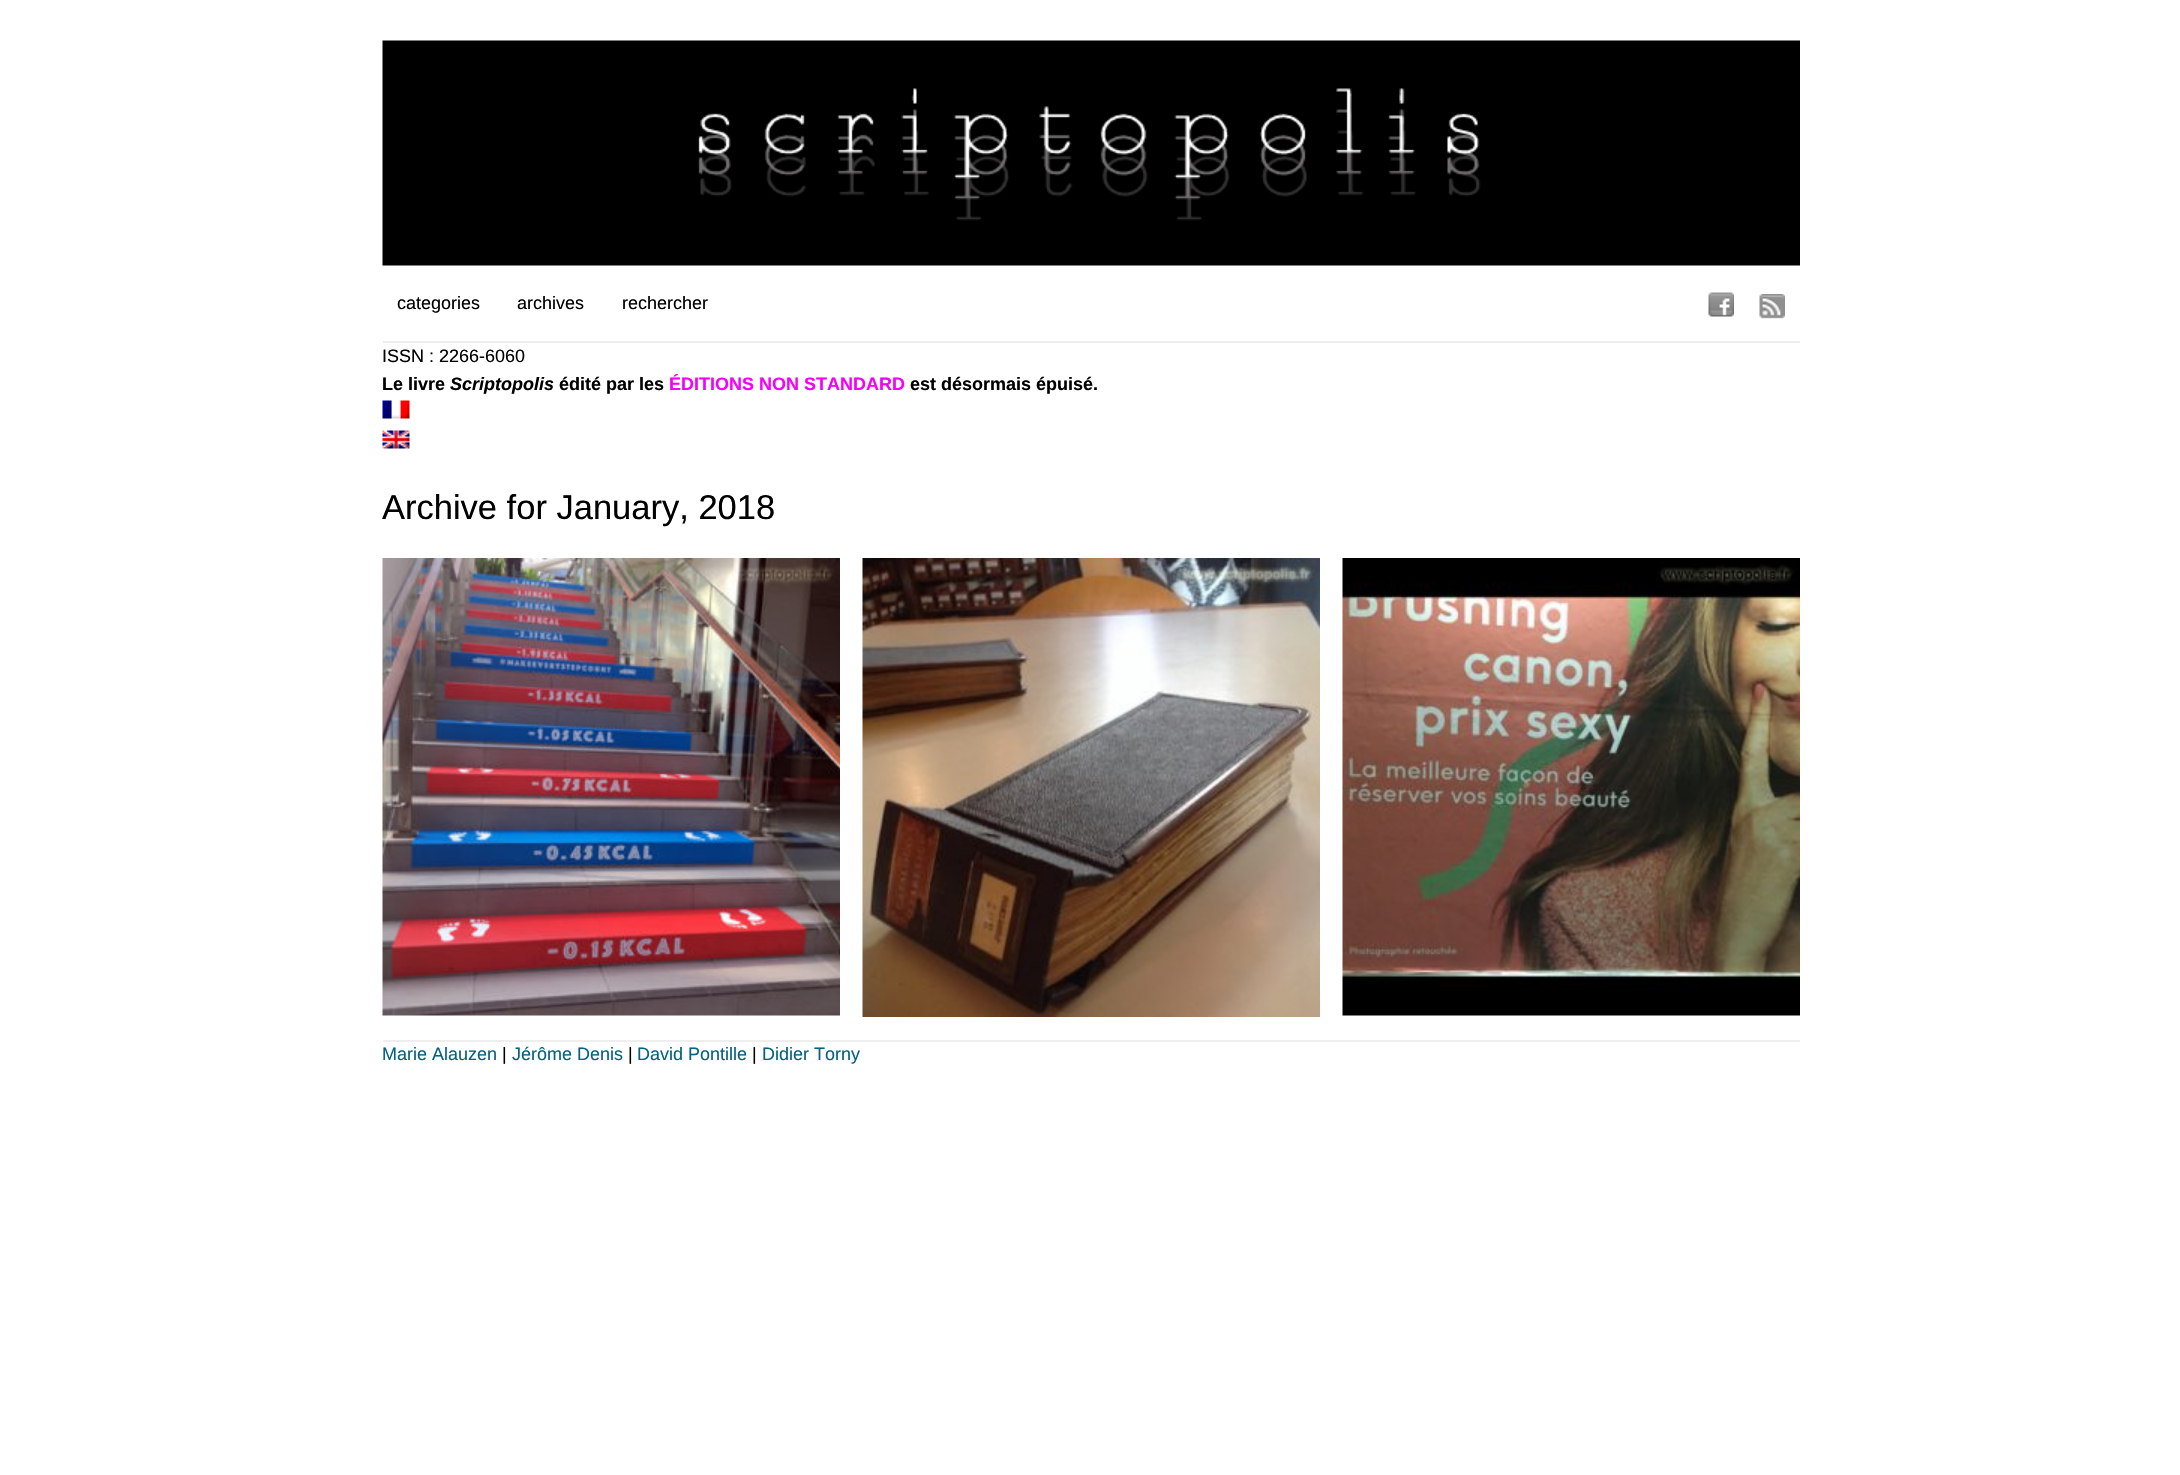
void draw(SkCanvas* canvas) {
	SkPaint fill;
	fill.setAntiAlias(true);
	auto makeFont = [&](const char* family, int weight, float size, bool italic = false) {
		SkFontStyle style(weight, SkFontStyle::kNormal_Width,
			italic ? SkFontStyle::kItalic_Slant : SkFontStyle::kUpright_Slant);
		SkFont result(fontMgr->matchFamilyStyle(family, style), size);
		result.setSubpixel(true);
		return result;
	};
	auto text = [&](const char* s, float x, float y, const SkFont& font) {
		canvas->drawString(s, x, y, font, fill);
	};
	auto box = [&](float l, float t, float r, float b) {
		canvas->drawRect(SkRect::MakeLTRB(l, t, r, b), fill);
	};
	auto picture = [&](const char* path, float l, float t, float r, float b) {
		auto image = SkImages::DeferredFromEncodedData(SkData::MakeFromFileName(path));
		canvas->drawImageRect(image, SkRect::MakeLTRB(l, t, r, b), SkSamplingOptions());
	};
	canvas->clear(0xFFFFFFFF);
	picture("image0.png", 382, 40, 1800, 266);
	fill.setColor(0xFFEEEEEE);
	box(383, 341, 1800, 343);
	picture("image1.png", 1708, 292, 1734, 317);
	picture("image2.png", 1759, 294, 1785, 319);
	picture("image3.png", 382, 400, 410, 419);
	picture("image4.png", 382, 430, 410, 449);
	picture("image5.png", 382, 558, 840, 1016);
	picture("image6.png", 862, 558, 1320, 1017);
	picture("image7.png", 1342, 558, 1800, 1016);
	box(383, 1040, 1800, 1042);
	auto font1 = makeFont("Liberation Sans", 400, 18);
	fill.setColor(0xFF000000);
	text("categories", 397, 309, font1);
	text("archives", 517, 309, font1);
	text("rechercher", 622, 309, font1);
	text("ISSN : 2266-6060", 382, 362, font1);
	auto font2 = makeFont("Liberation Sans", 700, 18);
	text("Le livre", 382, 390, font2);
	auto font3 = makeFont("Liberation Sans", 700, 18, true);
	text("Scriptopolis", 450, 390, font3);
	text("édité par les", 559, 390, font2);
	fill.setColor(0xFFF602FA);
	text("ÉDITIONS NON STANDARD", 669, 390, font2);
	fill.setColor(0xFF000000);
	text("est désormais épuisé.", 910, 390, font2);
	auto font4 = makeFont("Liberation Sans", 400, 34.5f);
	text("Archive for January, 2018", 382, 519, font4);
	fill.setColor(0xFF046380);
	text("Marie Alauzen", 382, 1060, font1);
	fill.setColor(0xFF000000);
	text("|", 502, 1060, font1);
	fill.setColor(0xFF046380);
	text("Jérôme Denis", 512, 1060, font1);
	fill.setColor(0xFF000000);
	text("|", 628, 1060, font1);
	fill.setColor(0xFF046380);
	text("David Pontille", 637, 1060, font1);
	fill.setColor(0xFF000000);
	text("|", 752, 1060, font1);
	fill.setColor(0xFF046380);
	text("Didier Torny", 762, 1060, font1);
}
